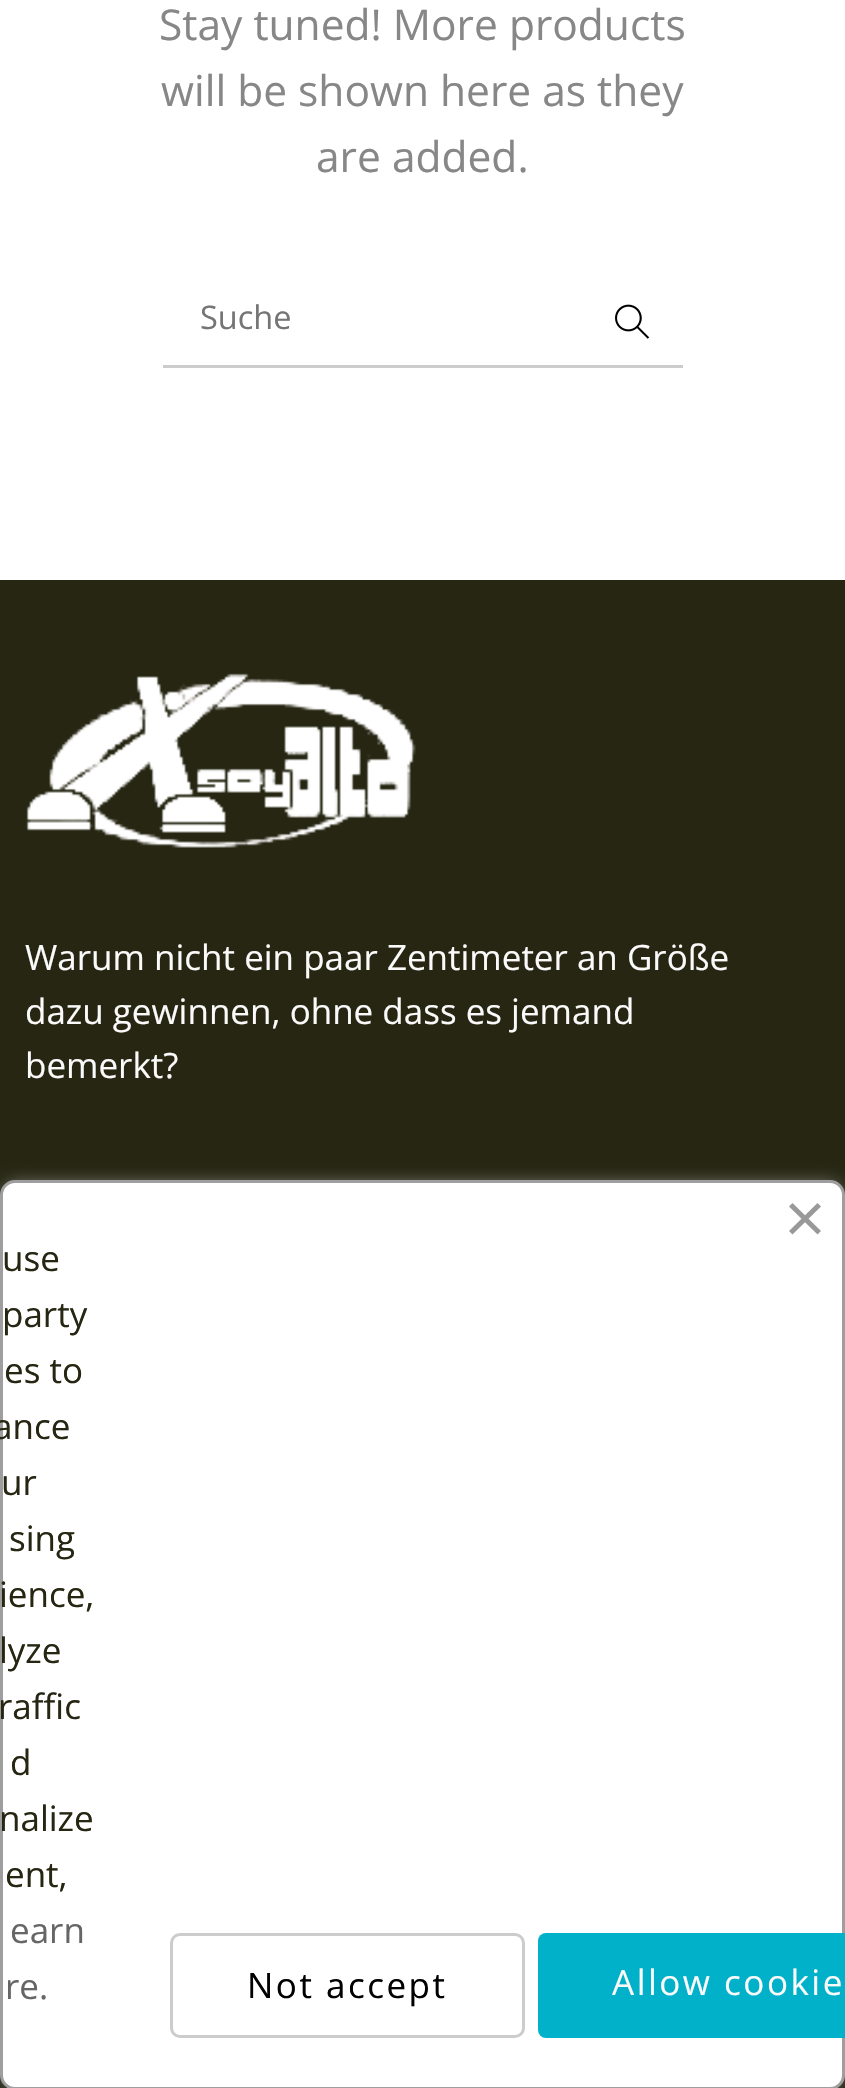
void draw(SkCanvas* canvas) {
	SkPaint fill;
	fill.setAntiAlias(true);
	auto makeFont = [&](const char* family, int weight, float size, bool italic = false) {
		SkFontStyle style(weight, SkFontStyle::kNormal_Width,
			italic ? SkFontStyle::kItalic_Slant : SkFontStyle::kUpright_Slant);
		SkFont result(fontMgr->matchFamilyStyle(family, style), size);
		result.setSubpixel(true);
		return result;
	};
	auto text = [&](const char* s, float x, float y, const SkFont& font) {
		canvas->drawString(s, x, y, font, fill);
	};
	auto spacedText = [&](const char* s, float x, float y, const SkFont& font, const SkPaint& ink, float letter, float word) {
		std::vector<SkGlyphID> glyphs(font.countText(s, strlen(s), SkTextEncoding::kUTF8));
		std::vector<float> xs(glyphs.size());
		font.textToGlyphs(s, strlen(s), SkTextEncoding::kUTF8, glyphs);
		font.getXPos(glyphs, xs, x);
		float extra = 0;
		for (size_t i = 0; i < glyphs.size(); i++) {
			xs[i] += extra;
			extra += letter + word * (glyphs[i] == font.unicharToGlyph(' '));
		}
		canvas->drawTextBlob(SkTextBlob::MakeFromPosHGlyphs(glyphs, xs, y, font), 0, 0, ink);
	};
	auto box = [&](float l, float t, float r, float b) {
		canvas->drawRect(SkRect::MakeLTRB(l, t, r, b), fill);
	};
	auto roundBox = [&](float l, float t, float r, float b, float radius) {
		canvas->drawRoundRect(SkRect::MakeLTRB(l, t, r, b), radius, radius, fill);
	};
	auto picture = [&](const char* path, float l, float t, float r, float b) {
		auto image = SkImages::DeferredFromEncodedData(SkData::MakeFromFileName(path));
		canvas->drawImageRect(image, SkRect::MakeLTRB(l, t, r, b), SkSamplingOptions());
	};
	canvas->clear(0xFFFFFFFF);
	fill.setColor(0xFFCCCCCC);
	box(163, 365, 683, 368);
	picture("image0.png", 615, 304, 650, 339);
	fill.setColor(0xFF262613);
	box(0, 580, 845, 2088);
	picture("image1.png", 26, 673, 416, 848);
	fill.setColor(0xFF9E9E9E);
	fill.setMaskFilter(SkMaskFilter::MakeBlur(kNormal_SkBlurStyle, 9));
	canvas->drawRoundRect(SkRect::MakeLTRB(5, 1185, 840, 2085), 10, 10, fill);
	fill.setMaskFilter(nullptr);
	fill.setColor(0xFFFFFFFF);
	canvas->drawRoundRect(SkRect::MakeLTRB(1.5f, 1181.5f, 843.5f, 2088.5f), 13.5f, 13.5f, fill);
	fill.setStyle(SkPaint::kStroke_Style);
	fill.setStrokeWidth(3);
	fill.setColor(0xFF9E9E9E);
	canvas->drawRoundRect(SkRect::MakeLTRB(1.5f, 1181.5f, 843.5f, 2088.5f), 13.5f, 13.5f, fill);
	fill.setStyle(SkPaint::kFill_Style);
	fill.setColor(0xFF999999);
	canvas->drawPath(SkPathBuilder().moveTo(789, 1231).lineTo(817.5f, 1203).lineTo(821, 1206.5f).lineTo(792.5f, 1234.5f).close().detach(), fill);
	canvas->drawPath(SkPathBuilder().moveTo(792.5f, 1203).lineTo(821, 1231).lineTo(817.5f, 1234.5f).lineTo(789, 1206.5f).close().detach(), fill);
	fill.setStyle(SkPaint::kStroke_Style);
	fill.setColor(0xFFCCCCCC);
	canvas->drawRoundRect(SkRect::MakeLTRB(171.5f, 1934.5f, 523.5f, 2036.5f), 8.5f, 8.5f, fill);
	fill.setStyle(SkPaint::kFill_Style);
	fill.setColor(0xFF00B1C9);
	roundBox(538, 1933, 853, 2038, 8);
	auto font1 = makeFont("Open Sans", 400, 42.5f);
	fill.setColor(0xFF878787);
	text("Stay tuned! More products", 159, 40, font1);
	text("will be shown here as they", 161, 106, font1);
	text("are added.", 316, 172, font1);
	auto font2 = makeFont("Open Sans", 400, 32.5f);
	fill.setColor(0xFF757575);
	text("Suche", 200, 329, font2);
	auto font3 = makeFont("Open Sans", 400, 35);
	fill.setColor(0xFFFAFAFA);
	text("Warum nicht ein paar Zentimeter an Größe", 25, 970, font3);
	text("dazu gewinnen, ohne dass es jemand", 25, 1024, font3);
	text("bemerkt?", 25, 1078, font3);
	fill.setColor(0xFF262613);
	text("use", 2, 1271, font3);
	text("party", 2, 1327, font3);
	text("es to", 4, 1383, font3);
	text("ance", -7, 1439, font3);
	text("ur", 1, 1495, font3);
	text("sing", 9, 1551, font3);
	text("ience,", -1, 1607, font3);
	text("lyze", -1, 1663, font3);
	text("raffic", -2, 1719, font3);
	text("d", 10, 1775, font3);
	text("nalize", -1, 1831, font3);
	text("ent,", 5, 1887, font3);
	fill.setColor(0xFF666666);
	text("earn", 10, 1943, font3);
	text("re.", 5, 1999, font3);
	fill.setColor(0xFF000000);
	spacedText("Not accept", 247, 1998, font3, fill, 2.5f, 0);
	fill.setColor(0xFFFAFAFA);
	spacedText("Allow cookie", 612, 1995, font3, fill, 2.5f, 0);
}
